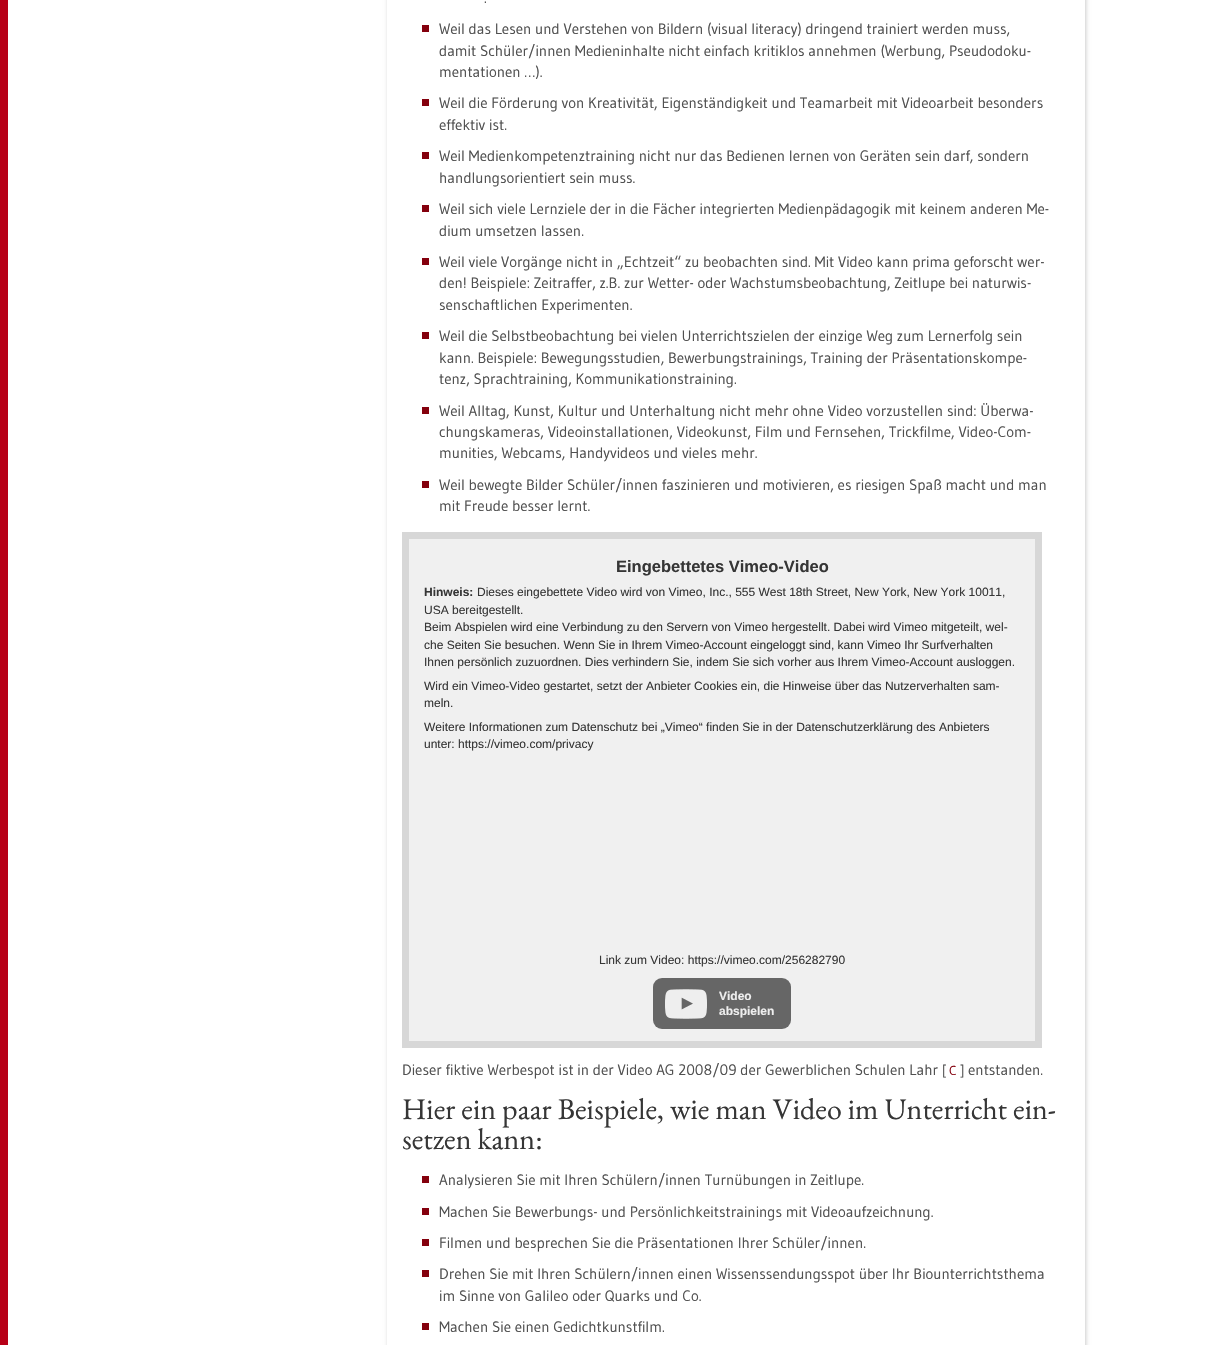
void draw(SkCanvas* canvas) {
	SkPaint fill;
	fill.setAntiAlias(true);
	auto makeFont = [&](const char* family, int weight, float size, bool italic = false) {
		SkFontStyle style(weight, SkFontStyle::kNormal_Width,
			italic ? SkFontStyle::kItalic_Slant : SkFontStyle::kUpright_Slant);
		SkFont result(fontMgr->matchFamilyStyle(family, style), size);
		result.setSubpixel(true);
		return result;
	};
	auto text = [&](const char* s, float x, float y, const SkFont& font) {
		canvas->drawString(s, x, y, font, fill);
	};
	auto box = [&](float l, float t, float r, float b) {
		canvas->drawRect(SkRect::MakeLTRB(l, t, r, b), fill);
	};
	auto roundBox = [&](float l, float t, float r, float b, float radius) {
		canvas->drawRoundRect(SkRect::MakeLTRB(l, t, r, b), radius, radius, fill);
	};
	auto picture = [&](const char* path, float l, float t, float r, float b) {
		auto image = SkImages::DeferredFromEncodedData(SkData::MakeFromFileName(path));
		canvas->drawImageRect(image, SkRect::MakeLTRB(l, t, r, b), SkSamplingOptions());
	};
	canvas->clear(0xFFFFFFFF);
	fill.setColor(0xFFB70017);
	box(0, 0, 8, 1345);
	canvas->save();
	canvas->clipPath(SkPathBuilder(SkPathFillType::kEvenOdd).moveTo(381, 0).lineTo(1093, 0).lineTo(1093, 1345).lineTo(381, 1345).close().moveTo(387, -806).lineTo(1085, -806).lineTo(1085, 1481).lineTo(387, 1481).close().detach(), true);
	fill.setColor(0x33000000);
	fill.setMaskFilter(SkMaskFilter::MakeBlur(kNormal_SkBlurStyle, 2));
	canvas->drawRect(SkRect::MakeLTRB(388, -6, 1086, 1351), fill);
	fill.setMaskFilter(nullptr);
	canvas->restore();
	fill.setColor(0xFF84000D);
	box(422, 25, 429, 32);
	box(422, 99, 429, 106);
	box(422, 152, 429, 159);
	box(422, 205, 429, 212);
	box(422, 258, 429, 265);
	box(422, 332, 429, 339);
	box(422, 407, 429, 414);
	box(422, 481, 429, 488);
	fill.setColor(0xFFF0F0F0);
	canvas->drawRect(SkRect::MakeLTRB(405.5f, 535.5f, 1038.5f, 1044.5f), fill);
	fill.setStyle(SkPaint::kStroke_Style);
	fill.setStrokeWidth(7);
	fill.setColor(0xFFD7D7D7);
	canvas->drawRect(SkRect::MakeLTRB(405.5f, 535.5f, 1038.5f, 1044.5f), fill);
	fill.setStyle(SkPaint::kFill_Style);
	fill.setColor(0xFF666666);
	roundBox(653, 978, 791, 1029, 9);
	picture("image0.png", 665, 989, 707, 1019);
	fill.setColor(0xFF84000D);
	box(422, 1176, 429, 1183);
	box(422, 1208, 429, 1215);
	box(422, 1239, 429, 1246);
	box(422, 1270, 429, 1277);
	box(422, 1323, 429, 1330);
	auto font1 = makeFont("Gudea", 400, 15);
	fill.setColor(0xFF505050);
	text(".", 484, 3, font1);
	text("Weil das Lesen und Verstehen von Bildern (visual literacy) dringend trainiert werden muss,", 439, 34, font1);
	text("damit Schüler/innen Medieninhalte nicht einfach kritiklos annehmen (Werbung, Pseudodoku-", 439, 56, font1);
	text("mentationen …).", 439, 77, font1);
	text("Weil die Förderung von Kreativität, Eigenständigkeit und Teamarbeit mit Videoarbeit besonders", 439, 108, font1);
	text("effektiv ist.", 439, 130, font1);
	text("Weil Medienkompetenztraining nicht nur das Bedienen lernen von Geräten sein darf, sondern", 439, 161, font1);
	text("handlungsorientiert sein muss.", 439, 183, font1);
	text("Weil sich viele Lernziele der in die Fächer integrierten Medienpädagogik mit keinem anderen Me-", 439, 214, font1);
	text("dium umsetzen lassen.", 439, 236, font1);
	text("Weil viele Vorgänge nicht in „Echtzeit“ zu beobachten sind. Mit Video kann prima geforscht wer-", 439, 267, font1);
	text("den! Beispiele: Zeitraffer, z.B. zur Wetter- oder Wachstumsbeobachtung, Zeitlupe bei naturwis-", 439, 288, font1);
	text("senschaftlichen Experimenten.", 439, 310, font1);
	text("Weil die Selbstbeobachtung bei vielen Unterrichtszielen der einzige Weg zum Lernerfolg sein", 439, 341, font1);
	text("kann. Beispiele: Bewegungsstudien, Bewerbungstrainings, Training der Präsentationskompe-", 439, 363, font1);
	text("tenz, Sprachtraining, Kommunikationstraining.", 439, 384, font1);
	text("Weil Alltag, Kunst, Kultur und Unterhaltung nicht mehr ohne Video vorzustellen sind: Überwa-", 439, 416, font1);
	text("chungskameras, Videoinstallationen, Videokunst, Film und Fernsehen, Trickfilme, Video-Com-", 439, 437, font1);
	text("munities, Webcams, Handyvideos und vieles mehr.", 439, 458, font1);
	text("Weil bewegte Bilder Schüler/innen faszinieren und motivieren, es riesigen Spaß macht und man", 439, 490, font1);
	text("mit Freude besser lernt.", 439, 511, font1);
	auto font2 = makeFont("Liberation Sans", 700, 16.5f);
	fill.setColor(0xFF363636);
	text("Eingebettetes Vimeo-Video", 616, 572, font2);
	auto font3 = makeFont("Liberation Sans", 700, 12);
	text("Hinweis:", 424, 596, font3);
	auto font4 = makeFont("Liberation Sans", 400, 12);
	text("Dieses eingebettete Video wird von Vimeo, Inc., 555 West 18th Street, New York, New York 10011,", 477, 596, font4);
	text("USA bereitgestellt.", 424, 614, font4);
	text("Beim Abspielen wird eine Verbindung zu den Servern von Vimeo hergestellt. Dabei wird Vimeo mitgeteilt, wel-", 424, 631, font4);
	text("che Seiten Sie besuchen. Wenn Sie in Ihrem Vimeo-Account eingeloggt sind, kann Vimeo Ihr Surfverhalten", 424, 649, font4);
	text("Ihnen persönlich zuzuordnen. Dies verhindern Sie, indem Sie sich vorher aus Ihrem Vimeo-Account ausloggen.", 424, 666, font4);
	text("Wird ein Vimeo-Video gestartet, setzt der Anbieter Cookies ein, die Hinweise über das Nutzerverhalten sam-", 424, 690, font4);
	text("meln.", 424, 707, font4);
	text("Weitere Informationen zum Datenschutz bei „Vimeo“ finden Sie in der Datenschutzerklärung des Anbieters", 424, 731, font4);
	text("unter: https://vimeo.com/privacy", 424, 748, font4);
	text("Link zum Video: https://vimeo.com/256282790", 599, 964, font4);
	fill.setColor(0xFFEEEEEE);
	text("Video", 719, 1000, font3);
	text("abspielen", 719, 1015, font3);
	fill.setColor(0xFF505050);
	text("Dieser fiktive Werbespot ist in der Video AG 2008/09 der Gewerblichen Schulen Lahr", 402, 1075, font1);
	auto font5 = makeFont("Gudea", 400, 13);
	text("[", 942, 1075, font5);
	fill.setColor(0xFF84000D);
	text("C", 949, 1075, font5);
	fill.setColor(0xFF505050);
	text("]", 960, 1075, font5);
	text("entstanden.", 968, 1075, font1);
	auto font6 = makeFont("EB Garamond", 400, 30);
	fill.setColor(0xFF363636);
	text("Hier ein paar Beispiele, wie man Video im Unterricht ein-", 402, 1119, font6);
	text("setzen kann:", 402, 1149, font6);
	fill.setColor(0xFF505050);
	text("Analysieren Sie mit Ihren Schülern/innen Turnübungen in Zeitlupe.", 439, 1185, font1);
	text("Machen Sie Bewerbungs- und Persönlichkeitstrainings mit Videoaufzeichnung.", 439, 1217, font1);
	text("Filmen und besprechen Sie die Präsentationen Ihrer Schüler/innen.", 439, 1248, font1);
	text("Drehen Sie mit Ihren Schülern/innen einen Wissenssendungsspot über Ihr Biounterrichtsthema", 439, 1279, font1);
	text("im Sinne von Galileo oder Quarks und Co.", 439, 1301, font1);
	text("Machen Sie einen Gedichtkunstfilm.", 439, 1332, font1);
}
